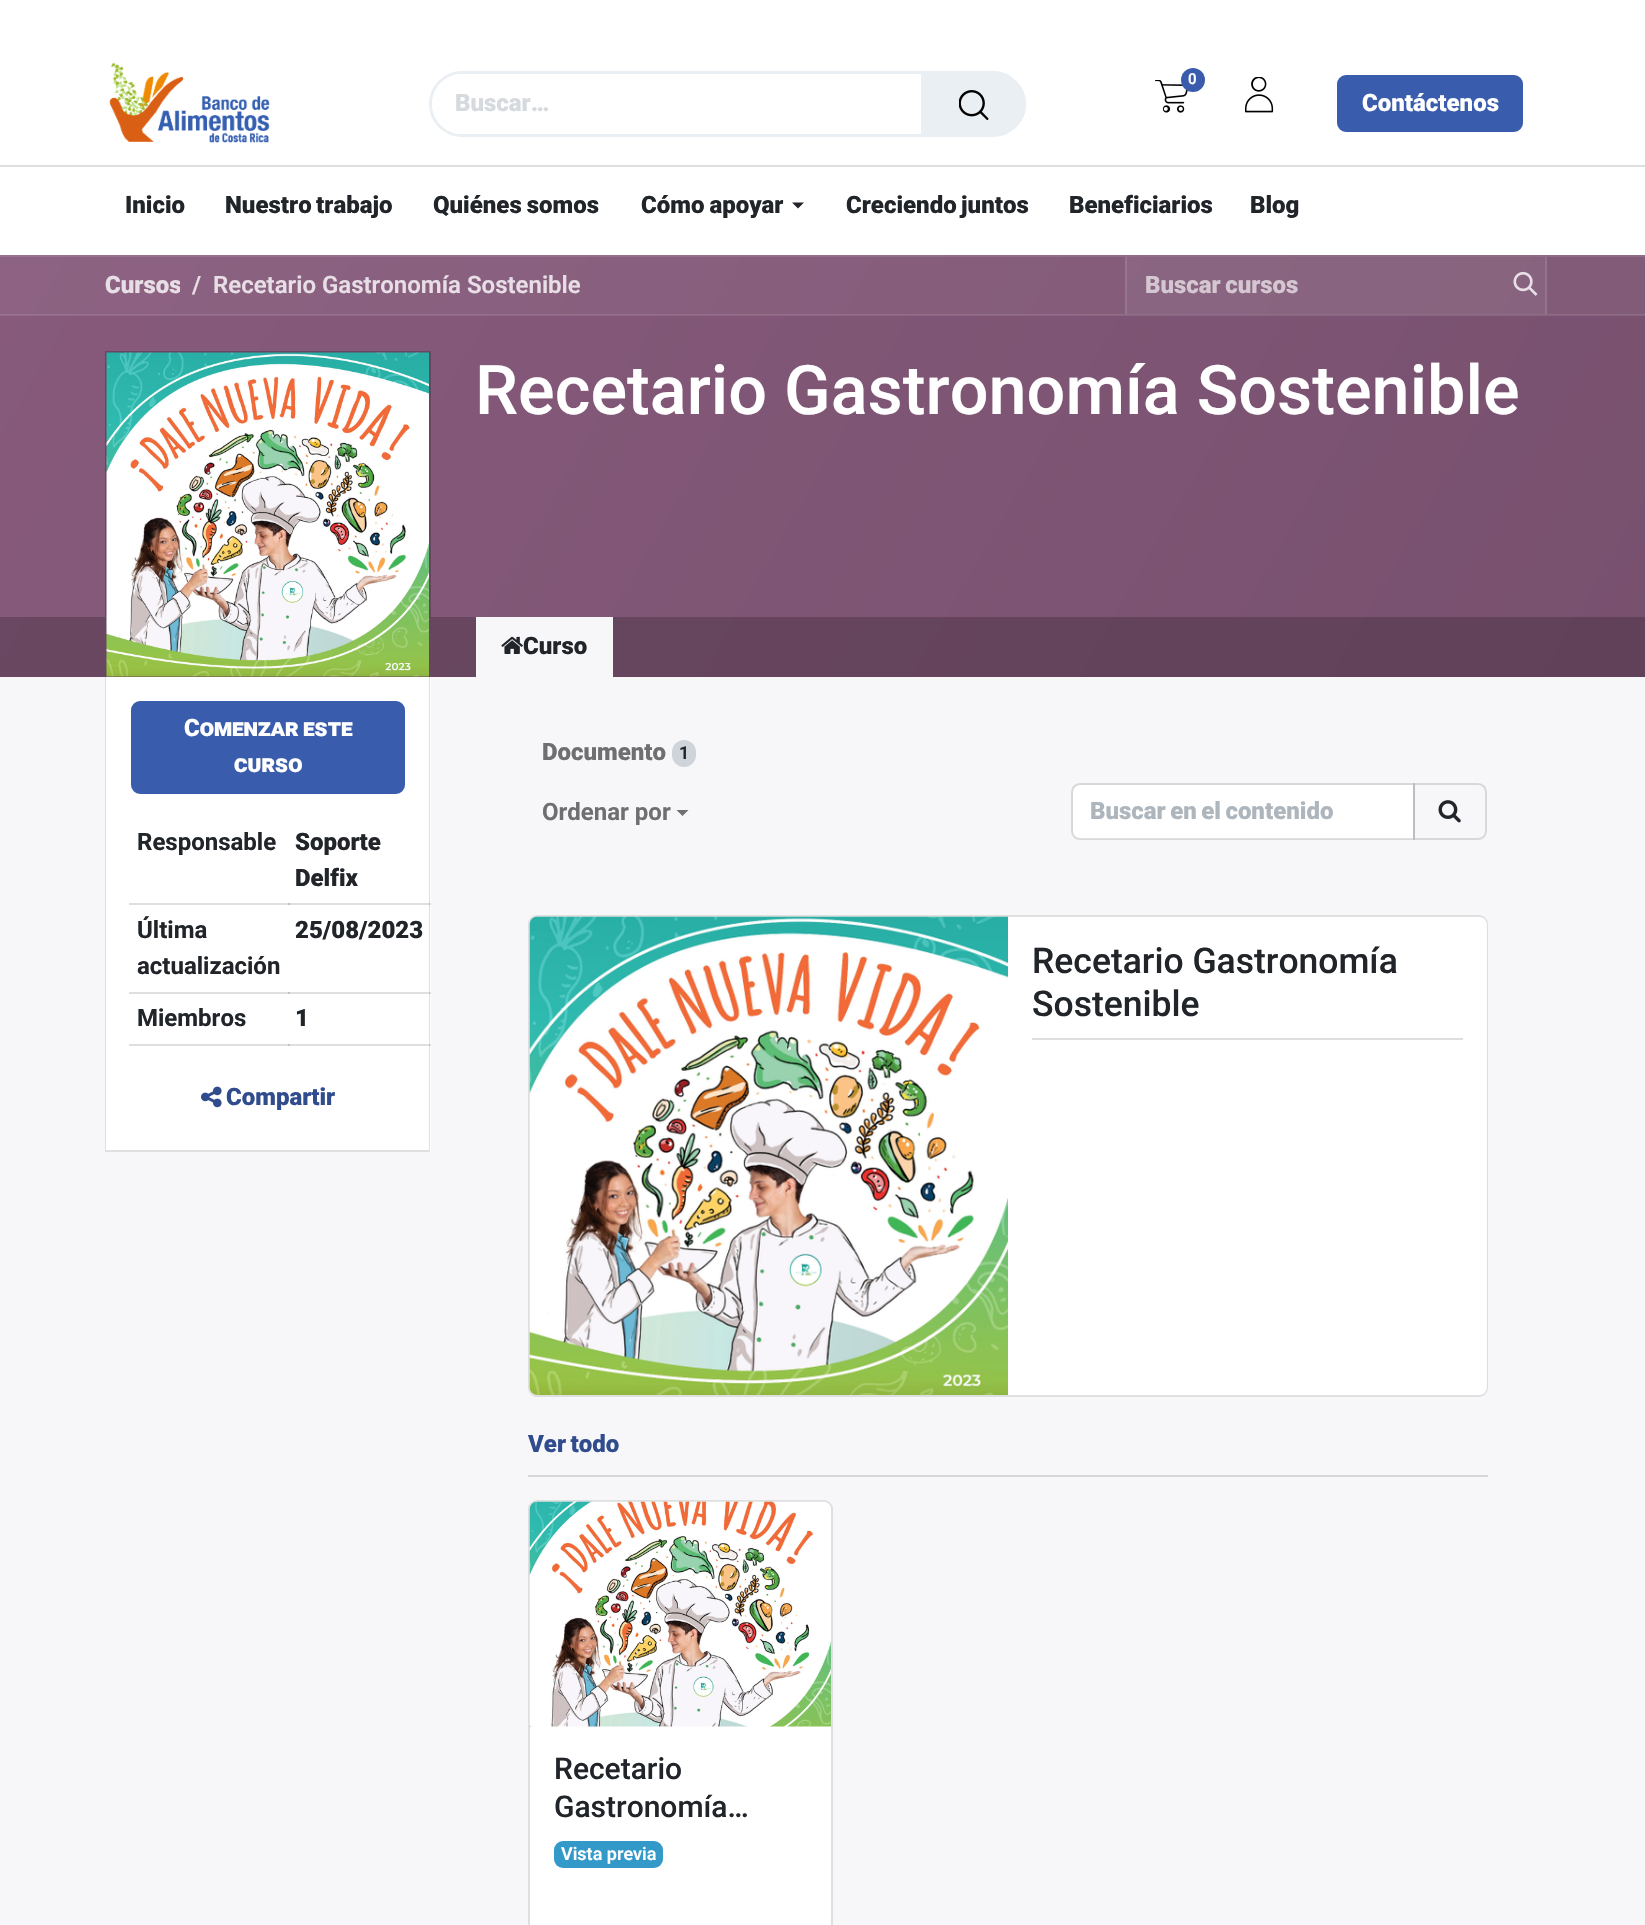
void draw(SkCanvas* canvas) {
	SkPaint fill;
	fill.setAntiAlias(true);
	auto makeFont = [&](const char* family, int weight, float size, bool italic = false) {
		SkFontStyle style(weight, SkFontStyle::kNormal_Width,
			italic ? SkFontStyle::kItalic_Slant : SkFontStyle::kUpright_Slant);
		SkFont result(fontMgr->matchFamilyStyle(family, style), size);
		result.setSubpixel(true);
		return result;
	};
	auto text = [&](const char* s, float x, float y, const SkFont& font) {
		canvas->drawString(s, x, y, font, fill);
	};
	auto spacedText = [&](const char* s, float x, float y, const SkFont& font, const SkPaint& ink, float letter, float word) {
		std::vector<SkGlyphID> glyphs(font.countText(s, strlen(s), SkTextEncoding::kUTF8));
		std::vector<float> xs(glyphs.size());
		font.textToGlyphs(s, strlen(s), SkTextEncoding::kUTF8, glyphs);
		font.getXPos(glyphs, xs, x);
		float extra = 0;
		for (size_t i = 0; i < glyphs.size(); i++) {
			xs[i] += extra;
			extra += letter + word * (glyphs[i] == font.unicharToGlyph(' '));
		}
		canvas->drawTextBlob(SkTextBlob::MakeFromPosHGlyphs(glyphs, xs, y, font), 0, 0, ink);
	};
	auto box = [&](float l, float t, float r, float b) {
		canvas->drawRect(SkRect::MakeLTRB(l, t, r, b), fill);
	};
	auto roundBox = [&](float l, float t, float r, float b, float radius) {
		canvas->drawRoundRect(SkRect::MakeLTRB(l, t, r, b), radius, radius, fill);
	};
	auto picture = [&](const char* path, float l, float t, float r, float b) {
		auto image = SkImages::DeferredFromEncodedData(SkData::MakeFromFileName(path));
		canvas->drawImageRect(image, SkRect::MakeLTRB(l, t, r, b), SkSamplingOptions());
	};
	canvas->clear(0xFFFFFFFF);
	picture("image0.png", 109, 62, 270, 143);
	fill.setStyle(SkPaint::kStroke_Style);
	fill.setStrokeWidth(3);
	fill.setColor(0xFFEAEFF3);
	canvas->drawRoundRect(SkRect::MakeLTRB(430.5f, 72.5f, 1024.5f, 135.5f), 31.5f, 31.5f, fill);
	fill.setStyle(SkPaint::kFill_Style);
	fill.setColor(0xFFFFFFFF);
	roundBox(432, 74, 1023, 134, 30);
	fill.setColor(0xFFEAEFF3);
	canvas->drawPath(SkPathBuilder().moveTo(922, 75).lineTo(996, 75).cubicTo(1012, 75, 1025, 88, 1025, 104).cubicTo(1025, 120, 1012, 133, 996, 133).lineTo(922, 133).close().detach(), fill);
	fill.setStyle(SkPaint::kStroke_Style);
	fill.setStrokeWidth(2);
	canvas->drawPath(SkPathBuilder().moveTo(922, 75).lineTo(996, 75).cubicTo(1012, 75, 1025, 88, 1025, 104).cubicTo(1025, 120, 1012, 133, 996, 133).lineTo(922, 133).close().detach(), fill);
	picture("image1.png", 959, 90, 989, 120);
	picture("image2.png", 1155, 80, 1188, 113);
	fill.setStyle(SkPaint::kFill_Style);
	fill.setColor(0xFF3A5CAC);
	canvas->drawCircle(1193, 80, 12, fill);
	picture("image3.png", 1245, 77, 1274, 113);
	canvas->drawRoundRect(SkRect::MakeLTRB(1338, 76, 1522, 131), 8, 8, fill);
	fill.setStyle(SkPaint::kStroke_Style);
	canvas->drawRoundRect(SkRect::MakeLTRB(1338, 76, 1522, 131), 8, 8, fill);
	fill.setStyle(SkPaint::kFill_Style);
	fill.setColor(0xFFDEDEDF);
	box(0, 165, 1645, 167);
	fill.setColor(0xFF212529);
	canvas->drawPath(SkPathBuilder().moveTo(792, 202.5f).lineTo(804, 202.5f).lineTo(798, 208.5f).close().detach(), fill);
	fill.setColor(0xFFF7F7FA);
	box(0, 677, 1645, 1925);
	fill.setColor(0xFFFFFFFF);
	box(105, 677, 431, 1152);
	fill.setColor(0x26212529);
	canvas->drawPath(SkPathBuilder().moveTo(430, 676).lineTo(430, 1152).lineTo(429, 1150).lineTo(429, 676).close().detach(), fill);
	canvas->drawPath(SkPathBuilder().moveTo(430, 1152).lineTo(105, 1152).lineTo(106, 1150).lineTo(429, 1150).close().detach(), fill);
	canvas->drawPath(SkPathBuilder().moveTo(105, 1152).lineTo(105, 676).lineTo(106, 676).lineTo(106, 1150).close().detach(), fill);
	{
		const SkColor colors[] = {0xFF875A7B, 0xFF78516F};
		const float stops[] = {0, 1};
		const SkPoint ends[] = {{114, 57}, {1531, 875}};
		fill.setShader(SkGradientShader::MakeLinear(ends, colors, stops, 2, SkTileMode::kClamp));
		fill.setAlpha(255);
	}
	box(0, 316, 1645, 677);
	{
		const SkColor colors[] = {0xFF936B88, 0xFF86627D};
		const float stops[] = {0, 1};
		const SkPoint ends[] = {{114, 57}, {1531, 875}};
		fill.setShader(SkGradientShader::MakeLinear(ends, colors, stops, 2, SkTileMode::kClamp));
		fill.setAlpha(255);
	}
	box(0, 315, 1645, 316);
	{
		const SkColor colors[] = {0xFF8D6282, 0xFF7F5A76};
		const float stops[] = {0, 1};
		const SkPoint ends[] = {{114, 57}, {1531, 875}};
		fill.setShader(SkGradientShader::MakeLinear(ends, colors, stops, 2, SkTileMode::kClamp));
		fill.setAlpha(255);
	}
	box(0, 257, 1645, 314);
	{
		const SkColor colors[] = {0xFF936A88, 0xFF85627D};
		const float stops[] = {0, 1};
		const SkPoint ends[] = {{114, 57}, {1531, 875}};
		fill.setShader(SkGradientShader::MakeLinear(ends, colors, stops, 2, SkTileMode::kClamp));
		fill.setAlpha(255);
	}
	box(1127, 257, 1545, 314);
	{
		const SkColor colors[] = {0xFF98728F, 0xFF8C6B84};
		const float stops[] = {0, 1};
		const SkPoint ends[] = {{114, 57}, {1531, 875}};
		fill.setShader(SkGradientShader::MakeLinear(ends, colors, stops, 2, SkTileMode::kClamp));
		fill.setAlpha(255);
	}
	box(0, 314, 1645, 315);
	box(0, 255, 1645, 257);
	fill.setShader(nullptr);
	fill.setColor(0xFF94738C);
	box(1545, 257, 1547, 314);
	fill.setColor(0xFF96758E);
	box(1125, 257, 1127, 314);
	picture("image4.png", 1513, 271, 1538, 296);
	fill.setColor(0xFF68465F);
	box(105, 351, 431, 353);
	box(429, 351, 431, 617);
	box(105, 351, 107, 617);
	fill.setColor(0x33000000);
	box(0, 617, 1645, 677);
	picture("image5.png", 106, 352, 429, 677);
	fill.setColor(0xFF3A5CAC);
	canvas->drawRoundRect(SkRect::MakeLTRB(132, 702, 404, 793), 8, 8, fill);
	fill.setStyle(SkPaint::kStroke_Style);
	canvas->drawRoundRect(SkRect::MakeLTRB(132, 702, 404, 793), 8, 8, fill);
	fill.setStyle(SkPaint::kFill_Style);
	fill.setColor(0x26212529);
	box(288, 903, 431, 905);
	box(129, 903, 290, 905);
	box(288, 992, 431, 994);
	box(129, 992, 290, 994);
	box(288, 1044, 431, 1046);
	box(129, 1044, 290, 1046);
	picture("image6.png", 201, 1086, 222, 1108);
	fill.setColor(0xFFF7F7FA);
	box(476, 617, 613, 677);
	picture("image7.png", 501, 636, 523, 654);
	fill.setColor(0xFFCED4DA);
	roundBox(672, 740, 696, 767, 12);
	fill.setColor(0xFF6F6F71);
	canvas->drawPath(SkPathBuilder().moveTo(676.5f, 810).lineTo(688.5f, 810).lineTo(682.5f, 816).close().detach(), fill);
	fill.setColor(0xFFFFFFFF);
	canvas->drawPath(SkPathBuilder().moveTo(1081, 785).lineTo(1413, 785).lineTo(1413, 839).lineTo(1081, 839).cubicTo(1076.5f, 839, 1073, 835.5f, 1073, 831).lineTo(1073, 793).cubicTo(1073, 788.5f, 1076.5f, 785, 1081, 785).close().detach(), fill);
	fill.setStyle(SkPaint::kStroke_Style);
	fill.setColor(0x26212529);
	canvas->drawPath(SkPathBuilder().moveTo(1080, 784).lineTo(1414, 784).lineTo(1414, 839).lineTo(1080, 839).cubicTo(1075.5f, 839, 1072, 835.5f, 1072, 831).lineTo(1072, 792).cubicTo(1072, 787.5f, 1075.5f, 784, 1080, 784).close().detach(), fill);
	canvas->drawPath(SkPathBuilder().moveTo(1414, 784).lineTo(1478, 784).cubicTo(1482.5f, 784, 1486, 787.5f, 1486, 792).lineTo(1486, 831).cubicTo(1486, 835.5f, 1482.5f, 839, 1478, 839).lineTo(1414, 839).close().detach(), fill);
	picture("image8.png", 1438, 800, 1461, 823);
	fill.setStyle(SkPaint::kFill_Style);
	fill.setColor(0xFFFFFFFF);
	roundBox(528, 915, 1488, 1397, 9);
	fill.setStyle(SkPaint::kStroke_Style);
	fill.setColor(0x26212529);
	canvas->drawRoundRect(SkRect::MakeLTRB(529, 916, 1487, 1396), 8, 8, fill);
	picture("image9.png", 529, 916, 1008, 1395);
	fill.setStyle(SkPaint::kFill_Style);
	fill.setColor(0xE6FFFFFF);
	canvas->drawPath(SkPathBuilder().moveTo(1008, 917).lineTo(1479, 917).cubicTo(1483.5f, 917, 1487, 920.5f, 1487, 925).lineTo(1487, 1387).cubicTo(1487, 1391.5f, 1483.5f, 1395, 1479, 1395).lineTo(1016, 1395).cubicTo(1011.5f, 1395, 1008, 1391.5f, 1008, 1387).close().detach(), fill);
	fill.setColor(0xFFDEDEDF);
	box(1032, 1038, 1463, 1040);
	fill.setColor(0xFFD7D8DB);
	box(528, 1475, 1488, 1477);
	fill.setColor(0xFFFFFFFF);
	canvas->drawPath(SkPathBuilder().moveTo(537, 1500).lineTo(824, 1500).cubicTo(829, 1500, 833, 1504, 833, 1509).lineTo(833, 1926).lineTo(528, 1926).lineTo(528, 1509).cubicTo(528, 1504, 532, 1500, 537, 1500).close().detach(), fill);
	fill.setStyle(SkPaint::kStroke_Style);
	fill.setColor(0x26212529);
	canvas->drawRoundRect(SkRect::MakeLTRB(529, 1501, 832, 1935), 8, 8, fill);
	picture("image10.png", 529, 1501, 831, 1727);
	fill.setStyle(SkPaint::kFill_Style);
	fill.setColor(0xFF3299C9);
	roundBox(554, 1841, 663, 1868, 9);
	auto font1 = makeFont("Roboto", 900, 24);
	fill.setColor(0xFFD6DADE);
	text("Buscar…", 455, 111, font1);
	auto font2 = makeFont("Roboto", 600, 15);
	fill.setColor(0xFFFFFFFF);
	text("0", 1188, 84, font2);
	text("Contáctenos", 1362, 111, font1);
	fill.setColor(0xFF212529);
	text("Inicio", 125, 213, font1);
	spacedText("Nuestro trabajo", 225, 213, font1, fill, 0, -1.5f);
	spacedText("Quiénes somos", 433, 213, font1, fill, 0, -1);
	spacedText("Cómo apoyar", 641, 213, font1, fill, 0, -1);
	spacedText("Creciendo juntos", 846, 213, font1, fill, 0, -1.5f);
	text("Beneficiarios", 1069, 213, font1);
	text("Blog", 1250, 213, font1);
	canvas->save();
	canvas->clipRect(SkRect::MakeLTRB(105, 267, 180, 303));
	fill.setColor(0xFFE8DFE6);
	text("Cursos", 105, 293, font1);
	canvas->restore();
	auto font3 = makeFont("Roboto", 600, 24);
	text("/", 192, 293, font3);
	text("Recetario Gastronomía Sostenible", 213, 293, font3);
	fill.setColor(0xFFD5C7D2);
	spacedText("Buscar cursos", 1145, 293, font1, fill, 0, -1.5f);
	auto font4 = makeFont("Roboto", 500, 68.4f);
	fill.setColor(0xFFFFFFFF);
	text("Recetario Gastronomía Sostenible", 475, 414, font4);
	auto font5 = makeFont("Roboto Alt", 900, 24);
	spacedText("Comenzar este", 184, 736, font5, fill, 0, -1.5f);
	text("curso", 234, 772, font5);
	auto font6 = makeFont("Roboto", 700, 24);
	fill.setColor(0xFF212529);
	text("Responsable", 137, 850, font6);
	text("Soporte", 295, 850, font1);
	text("Delfix", 295, 886, font1);
	text("Última", 137, 938, font6);
	text("actualización", 137, 974, font6);
	text("25/08/2023", 295, 938, font1);
	text("Miembros", 137, 1026, font6);
	text("1", 295, 1026, font1);
	fill.setColor(0xFF304C8D);
	text("Compartir", 226, 1105, font1);
	fill.setColor(0xFF212529);
	text("Curso", 523, 654, font1);
	fill.setColor(0xFF6F6F71);
	text("Documento", 542, 760, font1);
	auto font7 = makeFont("Roboto", 600, 18);
	fill.setColor(0xFF212529);
	text("1", 679, 759, font7);
	fill.setColor(0xFF6F6F71);
	text("Ordenar por", 542, 820, font6);
	fill.setColor(0xFFADB5BD);
	spacedText("Buscar en el contenido", 1090, 819, font1, fill, 0, -1.5f);
	auto font8 = makeFont("Roboto", 500, 35.5f);
	fill.setColor(0xFF212529);
	text("Recetario Gastronomía", 1032, 973, font8);
	text("Sostenible", 1032, 1016, font8);
	fill.setColor(0xFF304C8D);
	spacedText("Ver todo", 528, 1452, font1, fill, 0, -1.5f);
	auto font9 = makeFont("Roboto", 500, 30);
	fill.setColor(0xFF212529);
	text("Recetario", 554, 1779, font9);
	text("Gastronomía…", 554, 1817, font9);
	fill.setColor(0xFFFFFFFF);
	text("Vista previa", 561, 1860, font7);
}
